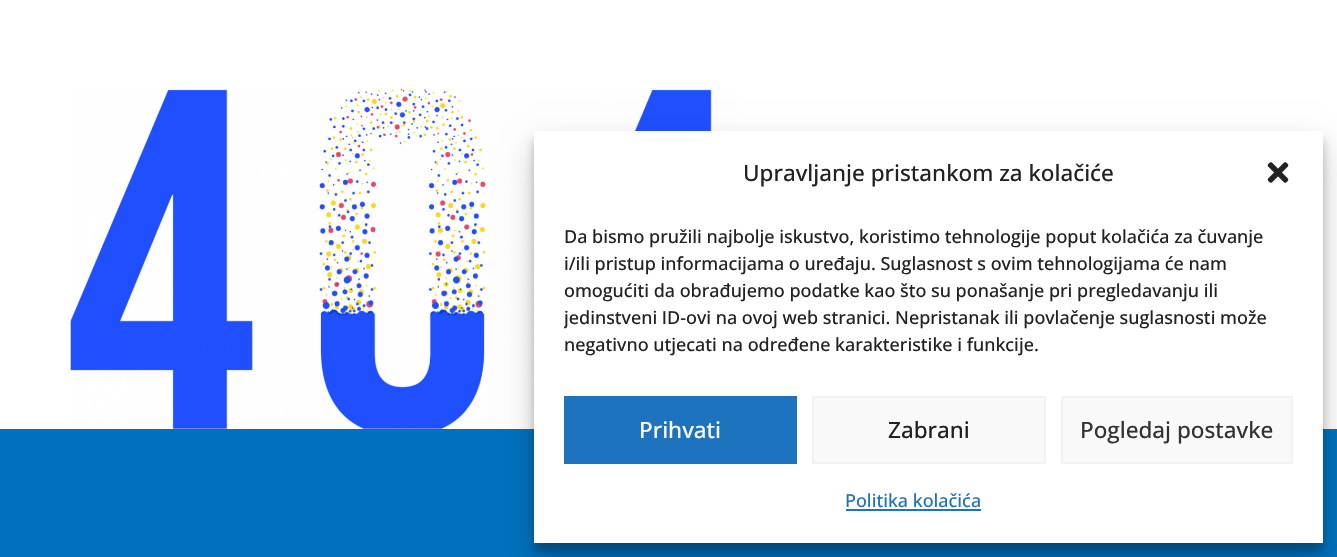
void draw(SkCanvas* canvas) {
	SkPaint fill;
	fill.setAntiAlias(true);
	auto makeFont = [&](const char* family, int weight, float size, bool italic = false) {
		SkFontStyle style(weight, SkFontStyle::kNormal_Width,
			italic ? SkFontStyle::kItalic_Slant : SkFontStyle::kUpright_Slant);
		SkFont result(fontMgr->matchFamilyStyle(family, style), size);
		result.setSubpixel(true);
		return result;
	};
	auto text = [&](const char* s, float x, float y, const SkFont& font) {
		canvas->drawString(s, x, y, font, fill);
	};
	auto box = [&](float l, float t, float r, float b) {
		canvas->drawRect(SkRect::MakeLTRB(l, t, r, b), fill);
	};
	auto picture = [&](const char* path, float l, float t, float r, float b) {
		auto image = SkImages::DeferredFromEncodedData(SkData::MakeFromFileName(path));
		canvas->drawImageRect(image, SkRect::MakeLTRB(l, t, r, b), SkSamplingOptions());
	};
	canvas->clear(0xFFFFFFFF);
	picture("image0.png", 70, 88, 737, 429);
	fill.setColor(0xFF0071BD);
	box(0, 429, 1337, 557);
	fill.setColor(0x3B000000);
	fill.setMaskFilter(SkMaskFilter::MakeBlur(kNormal_SkBlurStyle, 4.5f));
	canvas->drawRect(SkRect::MakeLTRB(534, 140, 1323, 552), fill);
	fill.setMaskFilter(nullptr);
	fill.setColor(0x30000000);
	fill.setMaskFilter(SkMaskFilter::MakeBlur(kNormal_SkBlurStyle, 15));
	canvas->drawRect(SkRect::MakeLTRB(534, 146, 1323, 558), fill);
	fill.setMaskFilter(nullptr);
	fill.setColor(0xFFFFFFFF);
	box(534, 131, 1323, 543);
	picture("image1.png", 1267, 162, 1289, 183);
	fill.setColor(0xFF1E73BE);
	box(564, 396, 797, 464);
	fill.setColor(0xFFF9F9F9);
	canvas->drawRect(SkRect::MakeLTRB(813, 397, 1045, 463), fill);
	fill.setStyle(SkPaint::kStroke_Style);
	fill.setStrokeWidth(2);
	fill.setColor(0xFFF2F2F2);
	canvas->drawRect(SkRect::MakeLTRB(813, 397, 1045, 463), fill);
	fill.setStyle(SkPaint::kFill_Style);
	fill.setColor(0xFFF9F9F9);
	canvas->drawRect(SkRect::MakeLTRB(1062, 397, 1292, 463), fill);
	fill.setStyle(SkPaint::kStroke_Style);
	fill.setColor(0xFFF2F2F2);
	canvas->drawRect(SkRect::MakeLTRB(1062, 397, 1292, 463), fill);
	fill.setStyle(SkPaint::kFill_Style);
	fill.setColor(0xFF1E73BE);
	box(846, 509, 981, 511);
	auto font1 = makeFont("Open Sans", 500, 22.5f);
	fill.setColor(0xFF222222);
	text("Upravljanje pristankom za kolačiće", 743, 181, font1);
	auto font2 = makeFont("Open Sans", 500, 18);
	text("Da bismo pružili najbolje iskustvo, koristimo tehnologije poput kolačića za čuvanje", 564, 243, font2);
	text("i/ili pristup informacijama o uređaju. Suglasnost s ovim tehnologijama će nam", 564, 270, font2);
	text("omogućiti da obrađujemo podatke kao što su ponašanje pri pregledavanju ili", 564, 297, font2);
	canvas->save();
	canvas->clipRect(SkRect::MakeLTRB(564, 224, 1293, 366));
	text("jedinstveni ID-ovi na ovoj web stranici. Nepristanak ili povlačenje suglasnosti može", 564, 324, font2);
	canvas->restore();
	text("negativno utjecati na određene karakteristike i funkcije.", 564, 351, font2);
	fill.setColor(0xFFFFFFFF);
	text("Prihvati", 639, 438, font1);
	fill.setColor(0xFF222222);
	text("Zabrani", 888, 438, font1);
	fill.setColor(0xFF333333);
	text("Pogledaj postavke", 1080, 438, font1);
	fill.setColor(0xFF1E73BE);
	text("Politika kolačića", 845, 507, font2);
}
